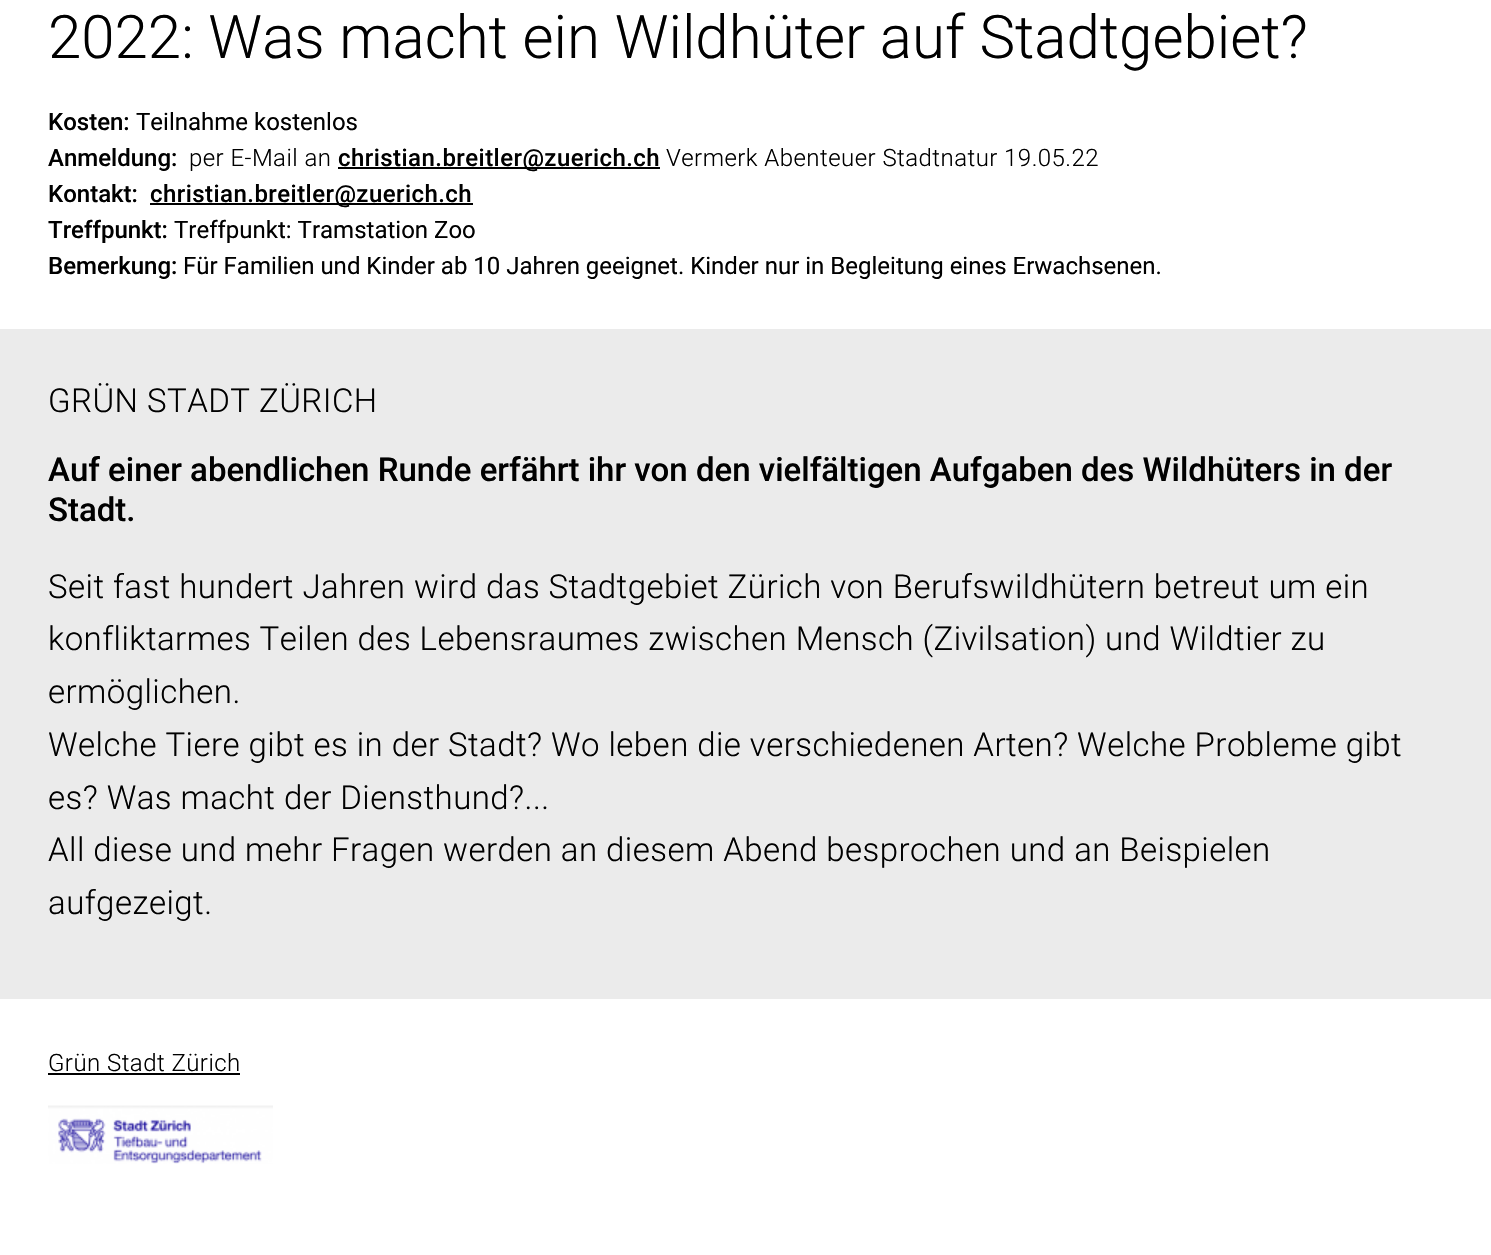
void draw(SkCanvas* canvas) {
	SkPaint fill;
	fill.setAntiAlias(true);
	auto makeFont = [&](const char* family, int weight, float size, bool italic = false) {
		SkFontStyle style(weight, SkFontStyle::kNormal_Width,
			italic ? SkFontStyle::kItalic_Slant : SkFontStyle::kUpright_Slant);
		SkFont result(fontMgr->matchFamilyStyle(family, style), size);
		result.setSubpixel(true);
		return result;
	};
	auto text = [&](const char* s, float x, float y, const SkFont& font) {
		canvas->drawString(s, x, y, font, fill);
	};
	auto spacedText = [&](const char* s, float x, float y, const SkFont& font, const SkPaint& ink, float letter, float word) {
		std::vector<SkGlyphID> glyphs(font.countText(s, strlen(s), SkTextEncoding::kUTF8));
		std::vector<float> xs(glyphs.size());
		font.textToGlyphs(s, strlen(s), SkTextEncoding::kUTF8, glyphs);
		font.getXPos(glyphs, xs, x);
		float extra = 0;
		for (size_t i = 0; i < glyphs.size(); i++) {
			xs[i] += extra;
			extra += letter + word * (glyphs[i] == font.unicharToGlyph(' '));
		}
		canvas->drawTextBlob(SkTextBlob::MakeFromPosHGlyphs(glyphs, xs, y, font), 0, 0, ink);
	};
	auto box = [&](float l, float t, float r, float b) {
		canvas->drawRect(SkRect::MakeLTRB(l, t, r, b), fill);
	};
	auto picture = [&](const char* path, float l, float t, float r, float b) {
		auto image = SkImages::DeferredFromEncodedData(SkData::MakeFromFileName(path));
		canvas->drawImageRect(image, SkRect::MakeLTRB(l, t, r, b), SkSamplingOptions());
	};
	canvas->clear(0xFFFFFFFF);
	fill.setColor(0xFF000000);
	box(338, 167, 660, 169);
	box(150, 203, 473, 205);
	fill.setColor(0xFFEBEBEB);
	box(0, 329, 1491, 999);
	fill.setColor(0xFF000000);
	box(48, 1073, 240, 1075);
	picture("image0.png", 48, 1105, 273, 1164);
	auto font1 = makeFont("Roboto", 300, 60);
	text("2022: Was macht ein Wildhüter auf Stadtgebiet?", 48, 58, font1);
	auto font2 = makeFont("Roboto", 500, 24);
	text("Kosten:", 48, 130, font2);
	auto font3 = makeFont("Roboto", 400, 24);
	text("Teilnahme kostenlos", 136, 130, font3);
	text("Anmeldung:", 48, 166, font2);
	auto font4 = makeFont("Roboto", 300, 24);
	spacedText("per E-Mail an", 189, 166, font4, fill, 0.45f, 0);
	spacedText("christian.breitler@zuerich.ch", 338, 166, font2, fill, 0.45f, 0);
	spacedText("Vermerk Abenteuer Stadtnatur 19.05.22", 666, 166, font4, fill, 0.45f, 0);
	text("Kontakt:", 48, 202, font2);
	spacedText("christian.breitler@zuerich.ch", 150, 202, font2, fill, 0.45f, 0);
	text("Treffpunkt:", 48, 238, font2);
	text("Treffpunkt: Tramstation Zoo", 174, 238, font3);
	text("Bemerkung:", 48, 274, font2);
	text("Für Familien und Kinder ab 10 Jahren geeignet. Kinder nur in Begleitung eines Erwachsenen.", 183, 274, font3);
	auto font5 = makeFont("Roboto", 300, 33);
	spacedText("GRÜN STADT ZÜRICH", 48, 412, font5, fill, 0.45f, 0);
	auto font6 = makeFont("Roboto", 500, 33);
	text("Auf einer abendlichen Runde erfährt ihr von den vielfältigen Aufgaben des Wildhüters in der", 48, 481, font6);
	text("Stadt.", 48, 521, font6);
	spacedText("Seit fast hundert Jahren wird das Stadtgebiet Zürich von Berufswildhütern betreut um ein", 48, 598, font5, fill, 0.45f, 0);
	spacedText("konfliktarmes Teilen des Lebensraumes zwischen Mensch (Zivilsation) und Wildtier zu", 48, 650, font5, fill, 0.45f, 0);
	spacedText("ermöglichen.", 48, 703, font5, fill, 0.45f, 0);
	spacedText("Welche Tiere gibt es in der Stadt? Wo leben die verschiedenen Arten? Welche Probleme gibt", 48, 756, font5, fill, 0.45f, 0);
	spacedText("es? Was macht der Diensthund?...", 48, 809, font5, fill, 0.45f, 0);
	spacedText("All diese und mehr Fragen werden an diesem Abend besprochen und an Beispielen", 48, 861, font5, fill, 0.45f, 0);
	spacedText("aufgezeigt.", 48, 914, font5, fill, 0.45f, 0);
	spacedText("Grün Stadt Zürich", 48, 1071, font4, fill, 0.45f, 0);
}
